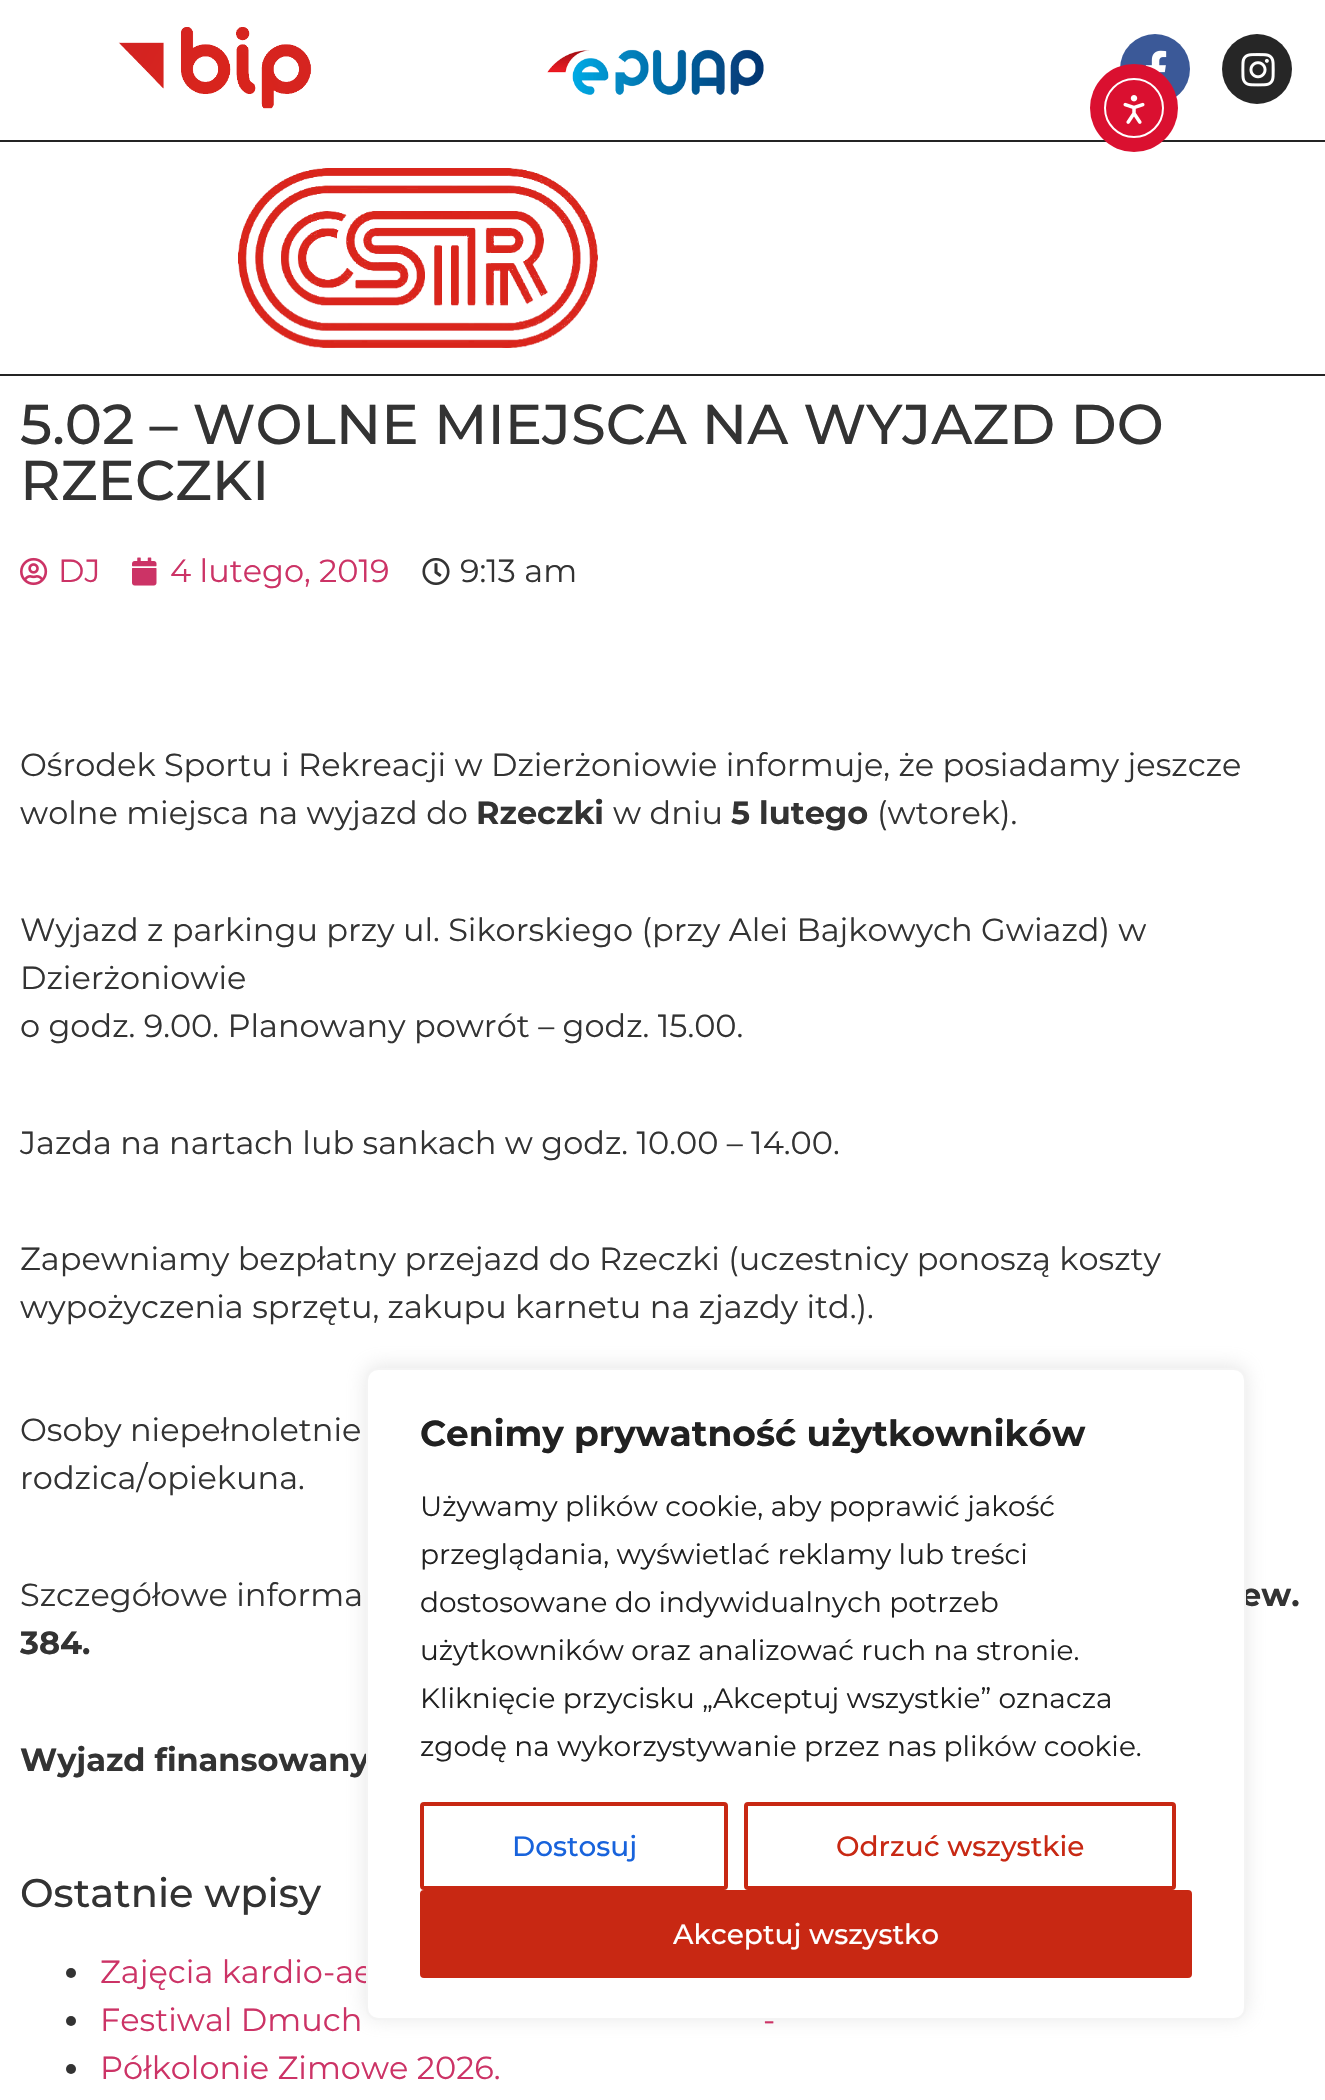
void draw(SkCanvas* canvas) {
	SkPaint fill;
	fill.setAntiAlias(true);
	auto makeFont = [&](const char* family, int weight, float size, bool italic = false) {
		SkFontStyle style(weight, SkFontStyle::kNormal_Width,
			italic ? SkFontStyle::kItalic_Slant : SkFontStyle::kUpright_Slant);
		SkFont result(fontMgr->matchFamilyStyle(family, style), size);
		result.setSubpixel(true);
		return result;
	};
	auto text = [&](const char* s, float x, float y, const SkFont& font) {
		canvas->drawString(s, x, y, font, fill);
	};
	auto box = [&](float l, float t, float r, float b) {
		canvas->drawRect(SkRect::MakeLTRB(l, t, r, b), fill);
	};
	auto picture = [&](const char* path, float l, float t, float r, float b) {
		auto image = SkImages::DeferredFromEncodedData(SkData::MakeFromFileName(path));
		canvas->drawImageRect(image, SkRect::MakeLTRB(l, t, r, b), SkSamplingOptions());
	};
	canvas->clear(0xFFFFFFFF);
	picture("image0.png", 118, 27, 312, 109);
	picture("image1.png", 547, 49, 764, 95);
	fill.setColor(0xFF3B5998);
	canvas->drawCircle(1155, 69, 35, fill);
	picture("image2.png", 1145, 50, 1167, 73);
	fill.setColor(0xFF262626);
	canvas->drawCircle(1257, 69, 35, fill);
	picture("image3.png", 1241, 53, 1275, 87);
	fill.setColor(0xFF242424);
	box(0, 140, 1325, 142);
	box(0, 374, 1325, 376);
	picture("image4.png", 238, 168, 598, 348);
	fill.setColor(0xFFDA1030);
	canvas->drawCircle(1134, 108, 44, fill);
	fill.setStyle(SkPaint::kStroke_Style);
	fill.setStrokeWidth(2);
	fill.setColor(0xFFFFFFFF);
	canvas->drawCircle(1134, 108, 29, fill);
	picture("image5.png", 1123, 95, 1145, 124);
	picture("image6.png", 20, 557, 48, 586);
	picture("image7.png", 132, 557, 157, 586);
	picture("image8.png", 422, 558, 450, 585);
	fill.setStyle(SkPaint::kFill_Style);
	fill.setColor(0xFF333333);
	canvas->drawCircle(71, 1973, 5, fill);
	canvas->drawCircle(71, 2021, 5, fill);
	canvas->drawCircle(71, 2069, 5, fill);
	fill.setColor(0x4DACABAB);
	fill.setMaskFilter(SkMaskFilter::MakeBlur(kNormal_SkBlurStyle, 10));
	canvas->drawRoundRect(SkRect::MakeLTRB(366, 1366, 1246, 2018), 12, 12, fill);
	fill.setMaskFilter(nullptr);
	auto font1 = makeFont("Montserrat", 500, 56);
	fill.setColor(0xFF333333);
	text("5.02 – WOLNE MIEJSCA NA WYJAZD DO", 20, 444, font1);
	text("RZECZKI", 20, 500, font1);
	auto font2 = makeFont("Montserrat", 400, 32);
	fill.setColor(0xFFCC3366);
	text("DJ", 58, 582, font2);
	text("4 lutego, 2019", 170, 582, font2);
	fill.setColor(0xFF333333);
	text("9:13 am", 460, 582, font2);
	text("Ośrodek Sportu i Rekreacji w Dzierżoniowie informuje, że posiadamy jeszcze", 20, 776, font2);
	text("wolne miejsca na wyjazd do", 20, 824, font2);
	auto font3 = makeFont("Montserrat", 700, 32);
	text("Rzeczki", 476, 824, font3);
	text("w dniu", 613, 824, font2);
	text("5 lutego", 731, 824, font3);
	text("(wtorek).", 877, 824, font2);
	text("Wyjazd z parkingu przy ul. Sikorskiego (przy Alei Bajkowych Gwiazd) w", 20, 941, font2);
	text("Dzierżoniowie", 20, 989, font2);
	text("o godz. 9.00. Planowany powrót – godz. 15.00.", 20, 1037, font2);
	text("Jazda na nartach lub sankach w godz. 10.00 – 14.00.", 20, 1154, font2);
	text("Zapewniamy bezpłatny przejazd do Rzeczki (uczestnicy ponoszą koszty", 20, 1270, font2);
	text("wypożyczenia sprzętu, zakupu karnetu na zjazdy itd.).", 20, 1318, font2);
	text("Osoby niepełnoletnie", 20, 1441, font2);
	text("rodzica/opiekuna.", 20, 1489, font2);
	text("Szczegółowe informa", 20, 1606, font2);
	text("ew.", 1241, 1606, font3);
	text("384.", 20, 1654, font3);
	text("Wyjazd finansowany", 20, 1771, font3);
	auto font4 = makeFont("Montserrat", 500, 40);
	text("Ostatnie wpisy", 20, 1907, font4);
	fill.setColor(0xFFCC3366);
	text("Zajęcia kardio-ae", 100, 1983, font2);
	text("Festiwal Dmuch", 100, 2031, font2);
	text("-", 763, 2031, font2);
	text("Półkolonie Zimowe 2026.", 100, 2079, font2);
	fill.setColor(0xFFFFFFFF);
	canvas->drawRoundRect(SkRect::MakeLTRB(367, 1369, 1245, 2019), 11, 11, fill);
	fill.setStyle(SkPaint::kStroke_Style);
	fill.setColor(0xFFF4F4F4);
	canvas->drawRoundRect(SkRect::MakeLTRB(367, 1369, 1245, 2019), 11, 11, fill);
	auto font5 = makeFont("Montserrat", 700, 36);
	fill.setStyle(SkPaint::kFill_Style);
	fill.setColor(0xFF212121);
	text("Cenimy prywatność użytkowników", 420, 1446, font5);
	auto font6 = makeFont("Montserrat", 400, 28);
	text("Używamy plików cookie, aby poprawić jakość", 420, 1516, font6);
	text("przeglądania, wyświetlać reklamy lub treści", 420, 1564, font6);
	text("dostosowane do indywidualnych potrzeb", 420, 1612, font6);
	text("użytkowników oraz analizować ruch na stronie.", 420, 1660, font6);
	text("Kliknięcie przycisku „Akceptuj wszystkie” oznacza", 420, 1708, font6);
	text("zgodę na wykorzystywanie przez nas plików cookie.", 420, 1756, font6);
	fill.setStyle(SkPaint::kStroke_Style);
	fill.setStrokeWidth(4);
	fill.setColor(0xFFC82813);
	canvas->drawRoundRect(SkRect::MakeLTRB(422, 1804, 726, 1888), 2, 2, fill);
	auto font7 = makeFont("Montserrat", 500, 28);
	fill.setStyle(SkPaint::kFill_Style);
	fill.setColor(0xFF1863DC);
	text("Dostosuj", 512, 1856, font7);
	fill.setStyle(SkPaint::kStroke_Style);
	fill.setColor(0xFFC82813);
	canvas->drawRoundRect(SkRect::MakeLTRB(746, 1804, 1174, 1888), 2, 2, fill);
	fill.setStyle(SkPaint::kFill_Style);
	text("Odrzuć wszystkie", 836, 1856, font7);
	canvas->drawRoundRect(SkRect::MakeLTRB(422, 1892, 1190, 1976), 2, 2, fill);
	fill.setStyle(SkPaint::kStroke_Style);
	canvas->drawRoundRect(SkRect::MakeLTRB(422, 1892, 1190, 1976), 2, 2, fill);
	fill.setStyle(SkPaint::kFill_Style);
	fill.setColor(0xFFFFFFFF);
	text("Akceptuj wszystko", 673, 1944, font7);
}
